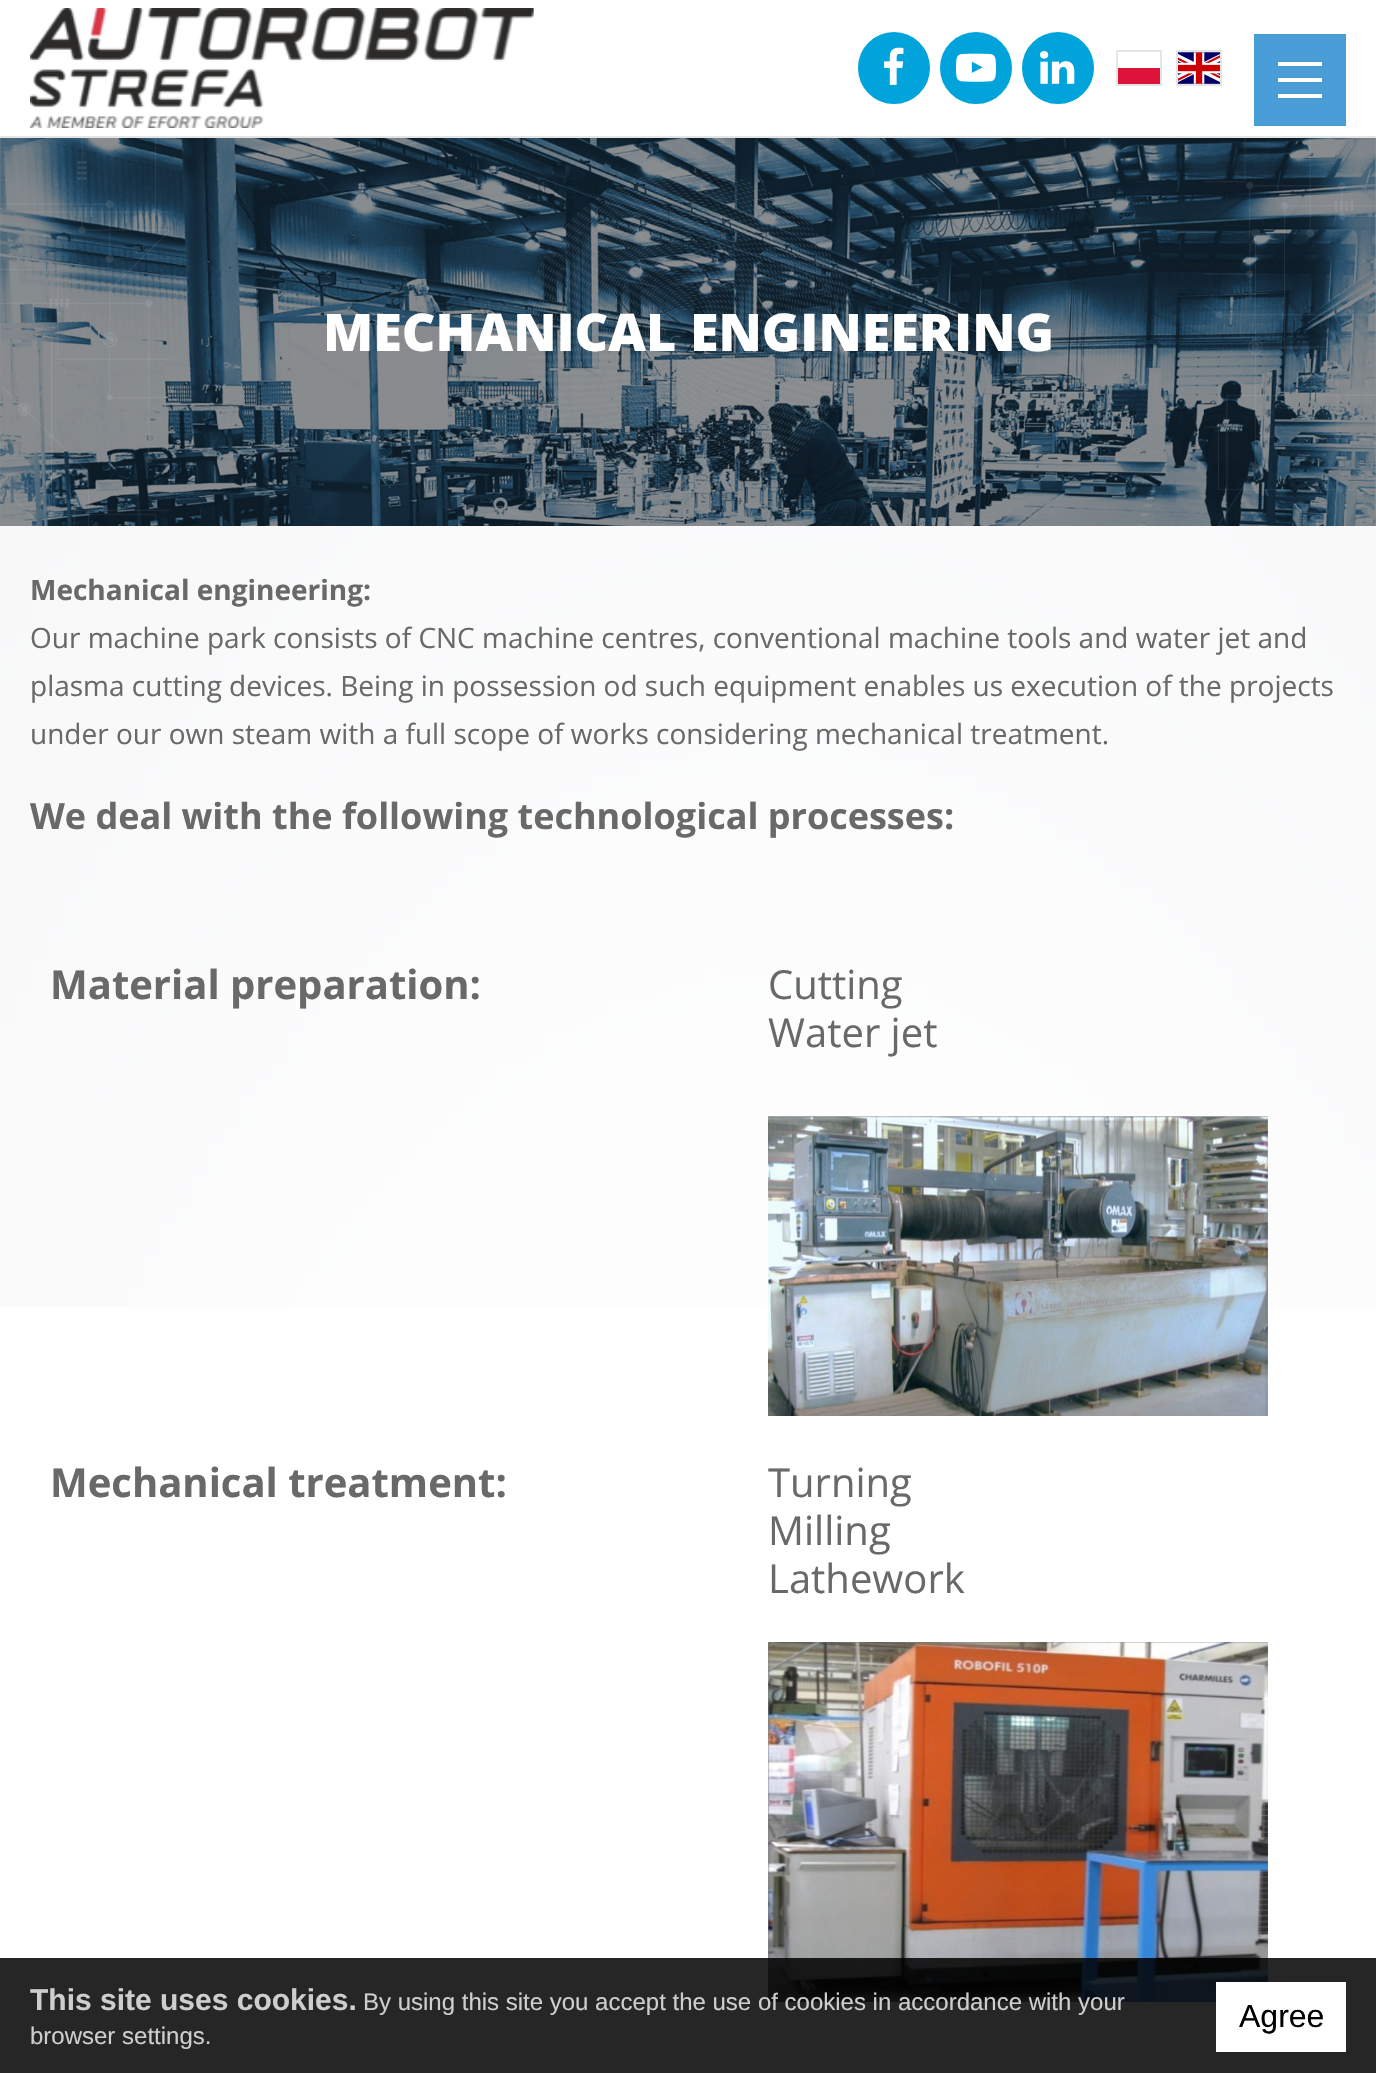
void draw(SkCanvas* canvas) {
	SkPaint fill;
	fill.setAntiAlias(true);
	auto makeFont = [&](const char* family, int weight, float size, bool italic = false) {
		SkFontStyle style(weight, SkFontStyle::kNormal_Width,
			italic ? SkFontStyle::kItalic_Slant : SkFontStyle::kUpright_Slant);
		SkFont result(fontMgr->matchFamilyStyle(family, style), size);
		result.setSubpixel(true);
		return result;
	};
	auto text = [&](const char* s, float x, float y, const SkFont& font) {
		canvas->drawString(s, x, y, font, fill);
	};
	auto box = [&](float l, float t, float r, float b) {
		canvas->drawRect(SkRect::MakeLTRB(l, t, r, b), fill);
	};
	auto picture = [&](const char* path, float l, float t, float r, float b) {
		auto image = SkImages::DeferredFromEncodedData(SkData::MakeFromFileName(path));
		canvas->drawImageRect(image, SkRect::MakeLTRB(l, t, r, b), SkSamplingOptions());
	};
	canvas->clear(0xFFFFFFFF);
	fill.setColor(0xFFE5E5E5);
	box(0, 136, 1376, 138);
	picture("image0.png", 30, 8, 534, 128);
	fill.setColor(0xFF00A3DA);
	canvas->drawCircle(894, 68, 35, fill);
	fill.setStyle(SkPaint::kStroke_Style);
	fill.setStrokeWidth(2);
	canvas->drawCircle(894, 68, 35, fill);
	picture("image1.png", 884, 47, 904, 85);
	fill.setStyle(SkPaint::kFill_Style);
	canvas->drawCircle(976, 68, 35, fill);
	fill.setStyle(SkPaint::kStroke_Style);
	canvas->drawCircle(976, 68, 35, fill);
	picture("image2.png", 956, 53, 996, 82);
	fill.setStyle(SkPaint::kFill_Style);
	canvas->drawCircle(1058, 68, 35, fill);
	fill.setStyle(SkPaint::kStroke_Style);
	canvas->drawCircle(1058, 68, 35, fill);
	picture("image3.png", 1040, 51, 1075, 84);
	fill.setColor(0xFFE5E5E5);
	canvas->drawRect(SkRect::MakeLTRB(1117, 51, 1161, 85), fill);
	fill.setStyle(SkPaint::kFill_Style);
	fill.setColor(0xFFDC143C);
	box(1118, 68, 1160, 84);
	fill.setStyle(SkPaint::kStroke_Style);
	fill.setColor(0xFFE5E5E5);
	canvas->drawRect(SkRect::MakeLTRB(1177, 51, 1221, 85), fill);
	picture("image4.png", 1178, 52, 1220, 84);
	fill.setStyle(SkPaint::kFill_Style);
	fill.setColor(0xFF499DD6);
	box(1254, 34, 1346, 126);
	fill.setColor(0xFFFFFFFF);
	box(1278, 62, 1322, 66);
	box(1278, 78, 1322, 82);
	box(1278, 94, 1322, 98);
	picture("image5.png", 0, 526, 1376, 1307);
	picture("image6.png", 0, 138, 1376, 526);
	picture("image7.png", 0, 138, 170, 526);
	picture("image8.png", 526, 170, 850, 493);
	picture("image9.png", 1204, 138, 1376, 526);
	picture("image10.png", 768, 1116, 1268, 1416);
	picture("image11.png", 768, 1642, 1268, 2002);
	fill.setColor(0xD9000000);
	box(0, 1958, 1376, 2073);
	fill.setColor(0xFFFFFFFF);
	box(1216, 1982, 1346, 2052);
	auto font1 = makeFont("Open Sans", 800, 52);
	text("MECHANICAL ENGINEERING", 323, 351, font1);
	auto font2 = makeFont("Open Sans", 700, 28);
	fill.setColor(0xFF696969);
	text("Mechanical engineering:", 30, 600, font2);
	auto font3 = makeFont("Open Sans", 400, 28);
	text("Our machine park consists of CNC machine centres, conventional machine tools and water jet and", 30, 648, font3);
	text("plasma cutting devices. Being in possession od such equipment enables us execution of the projects", 30, 696, font3);
	text("under our own steam with a full scope of works considering mechanical treatment.", 30, 744, font3);
	auto font4 = makeFont("Open Sans", 700, 36);
	text("We deal with the following technological processes:", 30, 829, font4);
	auto font5 = makeFont("Open Sans", 700, 40);
	text("Material preparation:", 50, 999, font5);
	auto font6 = makeFont("Open Sans", 400, 40);
	text("Cutting", 768, 999, font6);
	text("Water jet", 768, 1047, font6);
	text("Mechanical treatment:", 50, 1497, font5);
	text("Turning", 768, 1497, font6);
	text("Milling", 768, 1545, font6);
	text("Lathework", 768, 1593, font6);
	auto font7 = makeFont("Liberation Sans", 700, 30);
	fill.setColor(0xFFCECECE);
	text("This site uses cookies.", 30, 2010, font7);
	auto font8 = makeFont("Liberation Sans", 400, 24);
	text("By using this site you accept the use of cookies in accordance with your", 363, 2010, font8);
	text("browser settings.", 30, 2044, font8);
	auto font9 = makeFont("Liberation Sans", 400, 32);
	fill.setColor(0xFF000000);
	text("Agree", 1239, 2027, font9);
}
